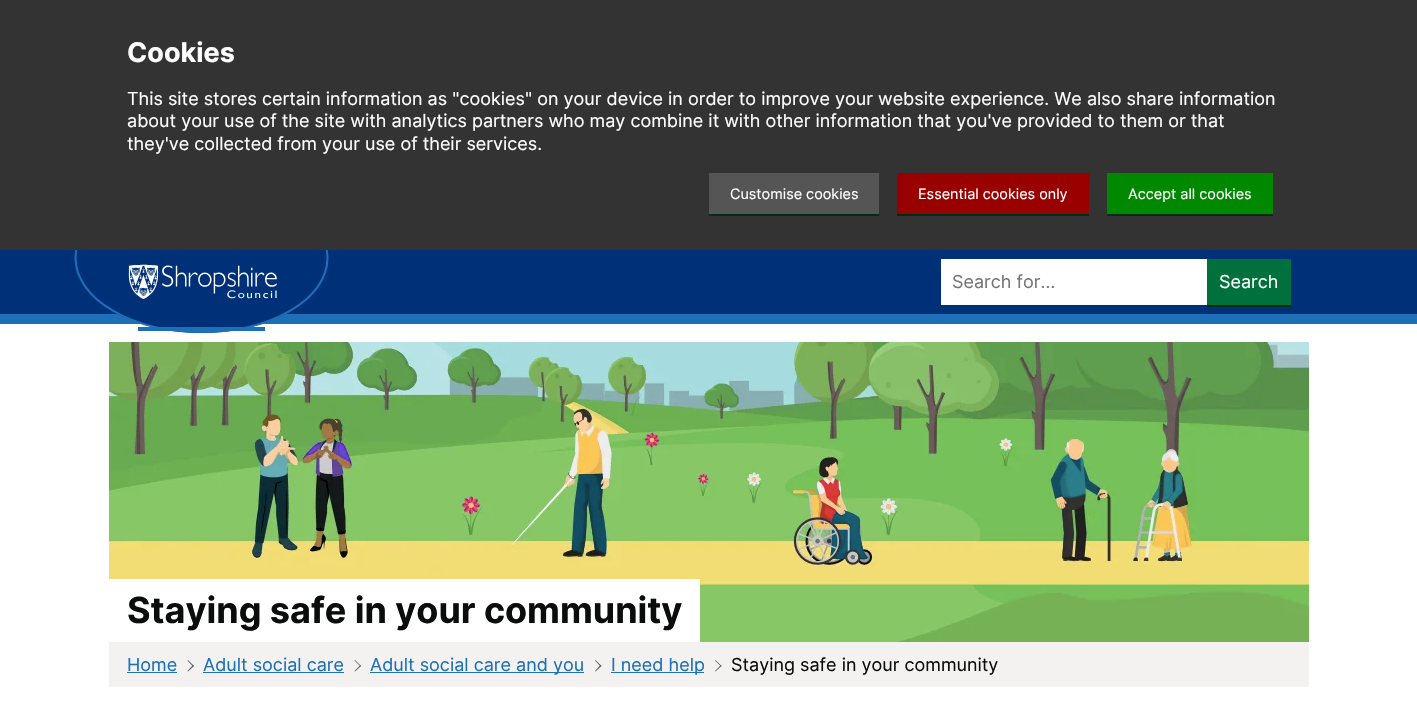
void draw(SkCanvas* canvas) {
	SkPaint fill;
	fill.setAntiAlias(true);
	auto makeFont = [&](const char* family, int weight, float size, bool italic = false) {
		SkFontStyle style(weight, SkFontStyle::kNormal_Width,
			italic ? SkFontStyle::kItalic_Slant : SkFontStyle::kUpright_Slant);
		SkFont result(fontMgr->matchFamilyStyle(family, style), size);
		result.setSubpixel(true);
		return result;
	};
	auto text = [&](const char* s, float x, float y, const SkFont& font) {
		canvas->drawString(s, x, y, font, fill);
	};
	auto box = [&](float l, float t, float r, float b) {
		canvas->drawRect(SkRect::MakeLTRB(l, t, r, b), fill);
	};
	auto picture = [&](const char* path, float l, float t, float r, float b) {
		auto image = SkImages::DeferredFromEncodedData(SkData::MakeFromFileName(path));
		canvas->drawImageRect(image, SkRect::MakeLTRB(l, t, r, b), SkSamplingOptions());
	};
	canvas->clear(0xFFFFFFFF);
	fill.setColor(0xFF003078);
	box(0, 250, 1417, 314);
	fill.setColor(0xFF1D70B8);
	box(0, 314, 1417, 324);
	picture("image0.png", 117, 314, 286, 333);
	fill.setStyle(SkPaint::kStroke_Style);
	fill.setStrokeWidth(2);
	canvas->drawPath(SkPathBuilder().moveTo(201.5f, 184).cubicTo(271.5f, 184, 327.5f, 217, 327.5f, 258).cubicTo(327.5f, 299, 271.5f, 332, 201.5f, 332).cubicTo(132, 332, 75.5f, 299, 75.5f, 258).cubicTo(75.5f, 217, 132, 184, 201.5f, 184).close().detach(), fill);
	fill.setStyle(SkPaint::kFill_Style);
	fill.setColor(0xFF333333);
	box(0, 0, 1417, 250);
	fill.setColor(0xFF002D18);
	box(709, 214, 879, 216);
	fill.setColor(0xFF555555);
	box(709, 173, 879, 214);
	fill.setColor(0xFF002D18);
	box(897, 214, 1089, 216);
	fill.setColor(0xFF990000);
	box(897, 173, 1089, 214);
	fill.setColor(0xFF002D18);
	box(1107, 214, 1273, 216);
	fill.setColor(0xFF008800);
	box(1107, 173, 1273, 214);
	fill.setColor(0xFF1D70B8);
	box(138, 327, 265, 331);
	picture("image1.png", 128, 264, 277, 299);
	fill.setColor(0xFFFFFFFF);
	box(941, 259, 1207, 305);
	fill.setColor(0xFF002D18);
	box(1207, 305, 1291, 307);
	fill.setColor(0xFF00703C);
	box(1207, 259, 1291, 305);
	picture("image2.png", 109, 342, 1309, 642);
	fill.setColor(0xFFFFFFFF);
	box(109, 579, 700, 642);
	fill.setColor(0xFFF3F2F1);
	box(109, 642, 1309, 687);
	fill.setColor(0xFF1D70B8);
	box(127, 672, 177, 673);
	fill.setColor(0xFF505A5F);
	canvas->drawPath(SkPathBuilder().moveTo(188, 660).lineTo(194, 666).lineTo(193, 666.5f).lineTo(187.5f, 660.5f).close().detach(), fill);
	canvas->drawPath(SkPathBuilder().moveTo(193, 665).lineTo(194, 666).lineTo(188, 671.5f).lineTo(187.5f, 671).close().detach(), fill);
	fill.setColor(0xFF1D70B8);
	box(203, 672, 344, 673);
	fill.setColor(0xFF505A5F);
	canvas->drawPath(SkPathBuilder().moveTo(355, 660).lineTo(361, 666).lineTo(360.5f, 666.5f).lineTo(354.5f, 660.5f).close().detach(), fill);
	canvas->drawPath(SkPathBuilder().moveTo(360.5f, 665).lineTo(361, 666).lineTo(355, 671.5f).lineTo(354.5f, 671).close().detach(), fill);
	fill.setColor(0xFF1D70B8);
	box(370, 672, 584, 673);
	fill.setColor(0xFF505A5F);
	canvas->drawPath(SkPathBuilder().moveTo(595.5f, 660).lineTo(601.5f, 666).lineTo(600.5f, 666.5f).lineTo(595, 660.5f).close().detach(), fill);
	canvas->drawPath(SkPathBuilder().moveTo(600.5f, 665).lineTo(601.5f, 666).lineTo(595.5f, 671.5f).lineTo(595, 671).close().detach(), fill);
	fill.setColor(0xFF1D70B8);
	box(611, 672, 704, 673);
	fill.setColor(0xFF505A5F);
	canvas->drawPath(SkPathBuilder().moveTo(715.5f, 660).lineTo(721.5f, 666).lineTo(721, 666.5f).lineTo(715, 660.5f).close().detach(), fill);
	canvas->drawPath(SkPathBuilder().moveTo(721, 665).lineTo(721.5f, 666).lineTo(715.5f, 671.5f).lineTo(715, 671).close().detach(), fill);
	auto font1 = makeFont("Inter", 700, 27);
	fill.setColor(0xFFFFFFFF);
	text("Cookies", 127, 62, font1);
	auto font2 = makeFont("Inter", 400, 18);
	text("This site stores certain information as \"cookies\" on your device in order to improve your website experience. We also share information", 127, 105, font2);
	text("about your use of the site with analytics partners who may combine it with other information that you've provided to them or that", 127, 127, font2);
	text("they've collected from your use of their services.", 127, 150, font2);
	auto font3 = makeFont("Inter", 400, 14.4f);
	text("Customise cookies", 730, 199, font3);
	text("Essential cookies only", 918, 199, font3);
	text("Accept all cookies", 1128, 199, font3);
	fill.setColor(0xFF757575);
	text("Search for…", 952, 288, font2);
	fill.setColor(0xFFFFFFFF);
	text("Search", 1219, 288, font2);
	auto font4 = makeFont("Inter", 700, 36);
	fill.setColor(0xFF0B0C0C);
	text("Staying safe in your community", 127, 623, font4);
	fill.setColor(0xFF1D70B8);
	text("Home", 127, 671, font2);
	text("Adult social care", 203, 671, font2);
	text("Adult social care and you", 370, 671, font2);
	text("I need help", 611, 671, font2);
	fill.setColor(0xFF0B0C0C);
	text("Staying safe in your community", 731, 671, font2);
}
